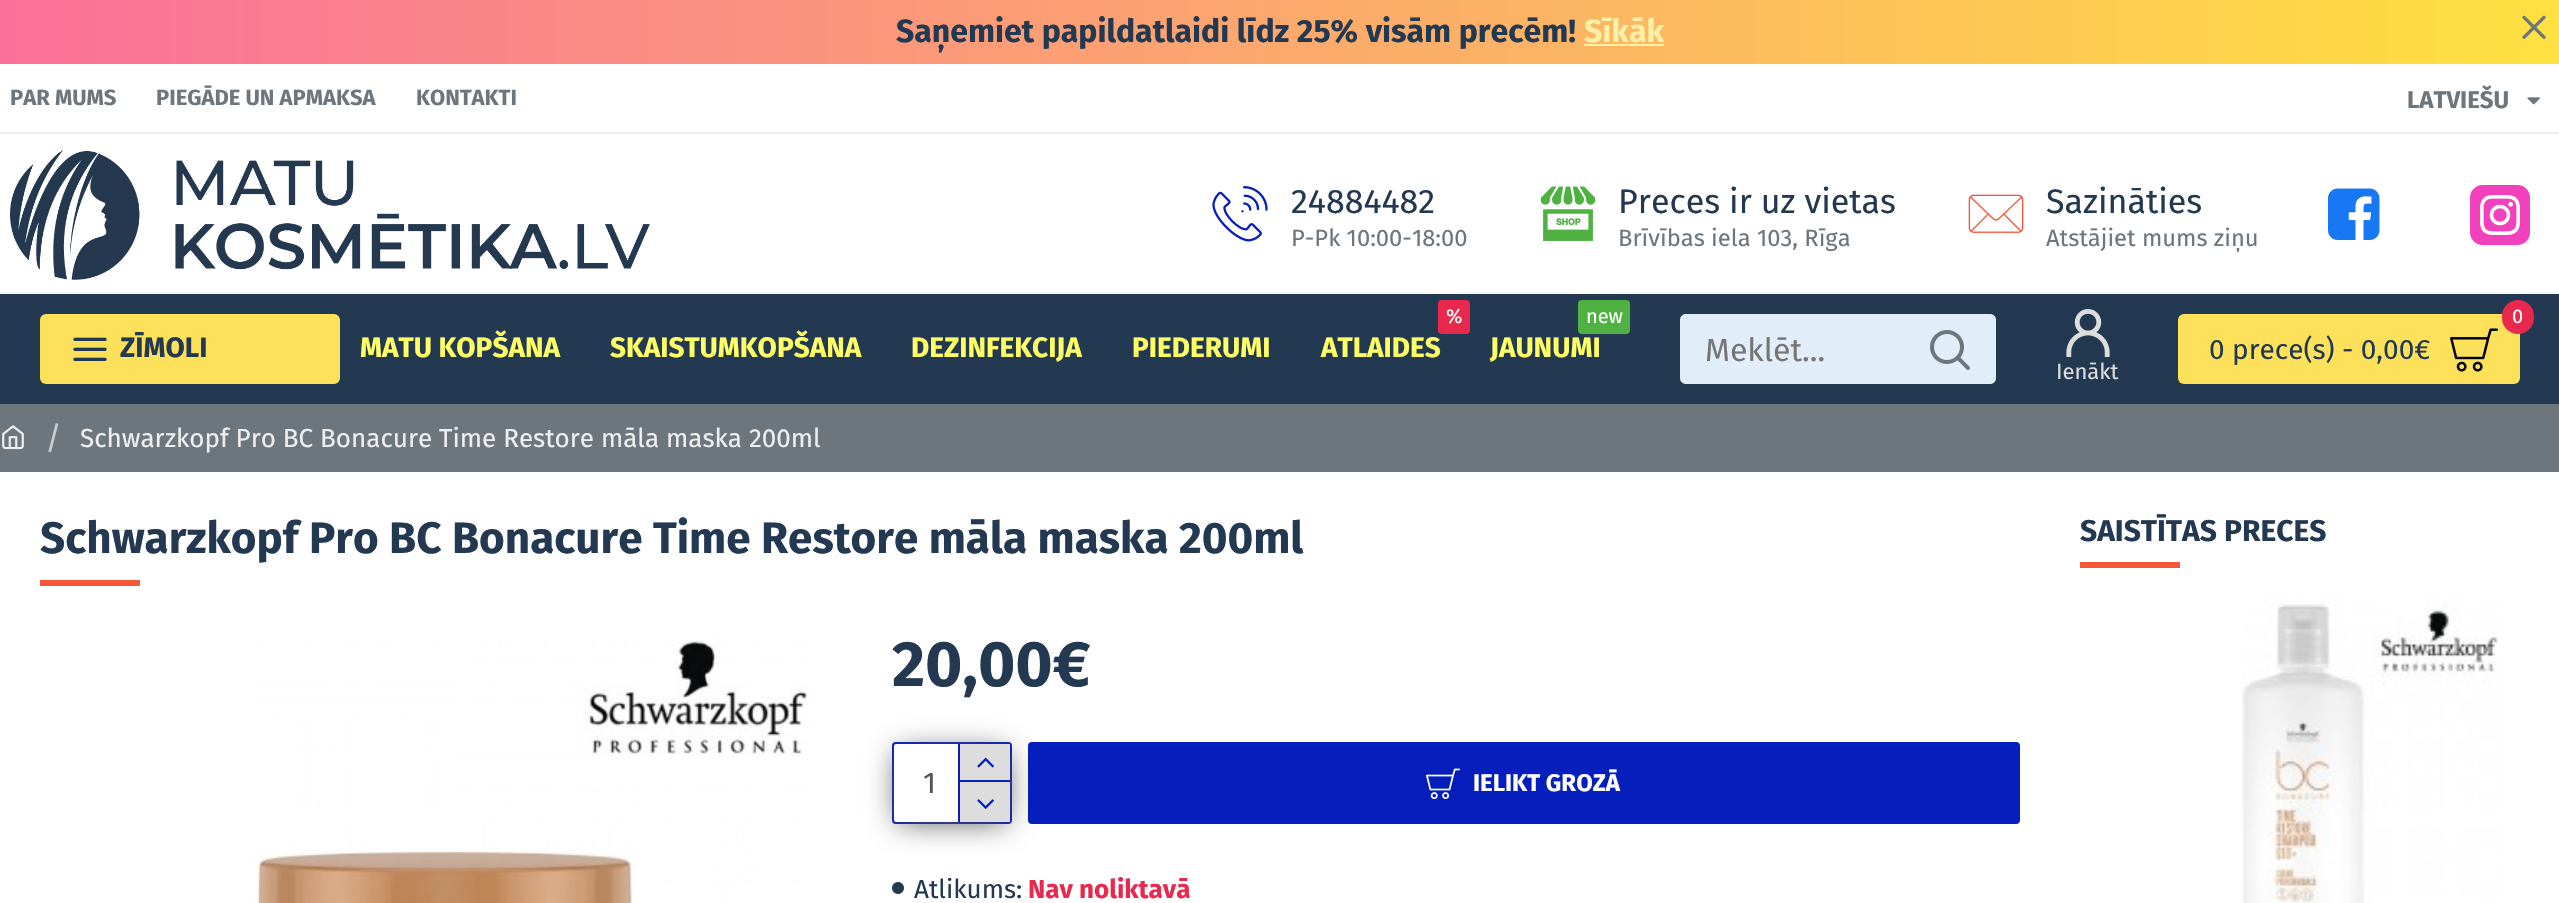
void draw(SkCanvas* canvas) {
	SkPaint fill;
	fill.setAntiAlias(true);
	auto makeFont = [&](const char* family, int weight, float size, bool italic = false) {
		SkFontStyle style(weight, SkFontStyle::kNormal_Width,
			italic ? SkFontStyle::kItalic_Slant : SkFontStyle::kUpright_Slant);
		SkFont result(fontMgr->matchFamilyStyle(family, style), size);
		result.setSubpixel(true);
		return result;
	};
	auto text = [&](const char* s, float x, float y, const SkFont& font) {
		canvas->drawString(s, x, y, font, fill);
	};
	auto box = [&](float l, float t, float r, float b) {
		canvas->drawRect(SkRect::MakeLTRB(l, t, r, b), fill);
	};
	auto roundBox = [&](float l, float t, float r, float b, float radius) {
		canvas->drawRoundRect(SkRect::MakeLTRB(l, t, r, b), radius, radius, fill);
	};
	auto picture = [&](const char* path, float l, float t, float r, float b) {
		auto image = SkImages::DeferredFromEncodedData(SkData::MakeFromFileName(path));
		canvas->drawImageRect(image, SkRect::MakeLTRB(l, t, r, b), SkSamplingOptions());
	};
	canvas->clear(0xFFFFFFFF);
	{
		const SkColor colors[] = {0xFFFA709A, 0xFFFEE140};
		const float stops[] = {0, 1};
		const SkPoint ends[] = {{0, 32}, {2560, 32}};
		fill.setShader(SkGradientShader::MakeLinear(ends, colors, stops, 2, SkTileMode::kClamp));
		fill.setAlpha(255);
	}
	box(0, 0, 2559, 64);
	fill.setShader(nullptr);
	fill.setColor(0xFFFEEFA7);
	box(1584, 44, 1664, 46);
	picture("image0.png", 2522, 15, 2546, 39);
	picture("image1.png", 2527, 97, 2540, 105);
	picture("image2.png", 10, 150, 650, 280);
	picture("image3.png", 1212, 186, 1268, 242);
	picture("image4.png", 1540, 186, 1596, 241);
	picture("image5.png", 1968, 194, 2024, 233);
	picture("image6.png", 2328, 188, 2380, 240);
	picture("image7.png", 2470, 185, 2530, 245);
	fill.setColor(0xFF233851);
	box(0, 294, 2559, 404);
	fill.setColor(0xFFFEE15B);
	roundBox(40, 314, 340, 384, 6);
	picture("image8.png", 73, 337, 107, 361);
	fill.setColor(0xFFE8284D);
	roundBox(1438, 300, 1470, 334, 4);
	fill.setColor(0xFF4EB142);
	roundBox(1578, 300, 1630, 334, 4);
	fill.setColor(0xFFE1EEFA);
	canvas->drawPath(SkPathBuilder().moveTo(1686, 314).lineTo(1906, 314).lineTo(1906, 384).lineTo(1686, 384).cubicTo(1682.5f, 384, 1680, 381.5f, 1680, 378).lineTo(1680, 320).cubicTo(1680, 316.5f, 1682.5f, 314, 1686, 314).close().detach(), fill);
	canvas->drawPath(SkPathBuilder().moveTo(1906, 314).lineTo(1990, 314).cubicTo(1993.5f, 314, 1996, 316.5f, 1996, 320).lineTo(1996, 378).cubicTo(1996, 381.5f, 1993.5f, 384, 1990, 384).lineTo(1906, 384).close().detach(), fill);
	picture("image9.png", 1930, 330, 1970, 370);
	fill.setColor(0xFFFEE15B);
	roundBox(2178, 314, 2520, 384, 6);
	fill.setColor(0xFFE8284D);
	roundBox(2502, 300, 2534, 334, 16);
	picture("image10.png", 2450, 328, 2498, 372);
	picture("image11.png", 2066, 309, 2110, 357);
	fill.setColor(0xFFEEEEEE);
	box(0, 132, 2559, 134);
	fill.setColor(0xFF6D767D);
	box(0, 404, 2559, 472);
	picture("image12.png", 2, 425, 24, 450);
	fill.setColor(0xFFF85639);
	box(40, 580, 140, 586);
	picture("image13.png", 255, 639, 810, 903);
	fill.setStyle(SkPaint::kStroke_Style);
	fill.setStrokeWidth(2);
	fill.setColor(0xFF061EBB);
	canvas->drawRoundRect(SkRect::MakeLTRB(893, 743, 1011, 823), 3, 3, fill);
	fill.setStyle(SkPaint::kFill_Style);
	fill.setColor(0xFF555555);
	fill.setMaskFilter(SkMaskFilter::MakeBlur(kNormal_SkBlurStyle, 15));
	canvas->drawRect(SkRect::MakeLTRB(898, 752, 1006, 822), fill);
	fill.setMaskFilter(nullptr);
	fill.setColor(0xFFFFFFFF);
	roundBox(894, 744, 1010, 822, 4);
	fill.setColor(0xFF061EBB);
	box(958, 744, 960, 822);
	fill.setColor(0xFFDDDDDD);
	box(960, 744, 1010, 780);
	fill.setColor(0xFF061EBB);
	box(960, 780, 1010, 782);
	picture("image14.png", 977, 757, 994, 768);
	fill.setColor(0xFFDDDDDD);
	box(960, 782, 1010, 822);
	picture("image15.png", 977, 799, 994, 809);
	fill.setColor(0xFF061EBB);
	roundBox(1028, 742, 2020, 824, 4);
	picture("image16.png", 1426, 768, 1460, 800);
	picture("image17.png", 892, 882, 904, 894);
	fill.setColor(0xFFF85639);
	box(2080, 562, 2180, 568);
	picture("image18.png", 2242, 598, 2498, 903);
	auto font1 = makeFont("Fira Sans", 700, 32);
	fill.setColor(0xFF233851);
	text("Saņemiet papildatlaidi līdz 25% visām precēm!", 896, 42, font1);
	fill.setColor(0xFFFEEFA7);
	text("Sīkāk", 1584, 42, font1);
	auto font2 = makeFont("Fira Sans", 700, 22);
	fill.setColor(0xFF6D767D);
	text("PAR MUMS", 10, 105, font2);
	text("PIEGĀDE UN APMAKSA", 156, 105, font2);
	text("KONTAKTI", 416, 105, font2);
	auto font3 = makeFont("Fira Sans", 700, 24);
	text("LATVIEŠU", 2407, 108, font3);
	auto font4 = makeFont("Fira Sans", 400, 34);
	fill.setColor(0xFF233851);
	text("24884482", 1291, 213, font4);
	auto font5 = makeFont("Fira Sans", 400, 23.75f);
	fill.setColor(0xFF6D767D);
	text("P-Pk 10:00-18:00", 1291, 246, font5);
	fill.setColor(0xFF233851);
	text("Preces ir uz vietas", 1618, 213, font4);
	fill.setColor(0xFF6D767D);
	text("Brīvības iela 103, Rīga", 1618, 246, font5);
	fill.setColor(0xFF233851);
	text("Sazināties", 2046, 213, font4);
	canvas->save();
	canvas->clipRect(SkRect::MakeLTRB(2046, 178, 2258, 252));
	fill.setColor(0xFF6D767D);
	text("Atstājiet mums ziņu", 2046, 246, font5);
	canvas->restore();
	auto font6 = makeFont("Fira Sans", 700, 28);
	fill.setColor(0xFF233851);
	text("ZĪMOLI", 120, 357, font6);
	fill.setColor(0xFFFFFF66);
	text("MATU KOPŠANA", 360, 357, font6);
	text("SKAISTUMKOPŠANA", 610, 357, font6);
	text("DEZINFEKCIJA", 911, 357, font6);
	text("PIEDERUMI", 1132, 357, font6);
	auto font7 = makeFont("Fira Sans", 400, 20);
	fill.setColor(0xFFFFFFFF);
	text("%", 1446, 323, font7);
	fill.setColor(0xFFFFFF66);
	text("ATLAIDES", 1321, 357, font6);
	fill.setColor(0xFFFFFFFF);
	text("new", 1586, 323, font7);
	fill.setColor(0xFFFFFF66);
	text("JAUNUMI", 1490, 357, font6);
	auto font8 = makeFont("Fira Sans", 400, 32);
	fill.setColor(0xFF757575);
	text("Meklēt...", 1705, 361, font8);
	fill.setColor(0xFFFFFFFF);
	text("0", 2512, 323, font7);
	auto font9 = makeFont("Fira Sans", 400, 28);
	fill.setColor(0xFF233851);
	text("0 prece(s) - 0,00€", 2209, 359, font9);
	auto font10 = makeFont("Fira Sans", 400, 22);
	fill.setColor(0xFFDDDDDD);
	text("Ienākt", 2056, 379, font10);
	fill.setColor(0xFFCCCCCC);
	text("/", 45, 449, font8);
	auto font11 = makeFont("Fira Sans", 400, 26);
	fill.setColor(0xFFEEEEEE);
	text("Schwarzkopf Pro BC Bonacure Time Restore māla maska 200ml", 80, 447, font11);
	auto font12 = makeFont("Fira Sans", 700, 44);
	fill.setColor(0xFF233851);
	text("Schwarzkopf Pro BC Bonacure Time Restore māla maska 200ml", 40, 553, font12);
	auto font13 = makeFont("Fira Sans", 700, 64);
	text("20,00€", 892, 686, font13);
	auto font14 = makeFont("Fira Sans", 400, 30);
	fill.setColor(0xFF555555);
	text("1", 923, 793, font14);
	fill.setColor(0xFFFFFFFF);
	text("IELIKT GROZĀ", 1473, 791, font3);
	fill.setColor(0xFF233851);
	text("Atlikums:", 914, 898, font11);
	auto font15 = makeFont("Fira Sans", 700, 26);
	fill.setColor(0xFFE8284D);
	text("Nav noliktavā", 1028, 898, font15);
	auto font16 = makeFont("Fira Sans", 700, 30);
	fill.setColor(0xFF233851);
	text("SAISTĪTAS PRECES", 2080, 541, font16);
}
